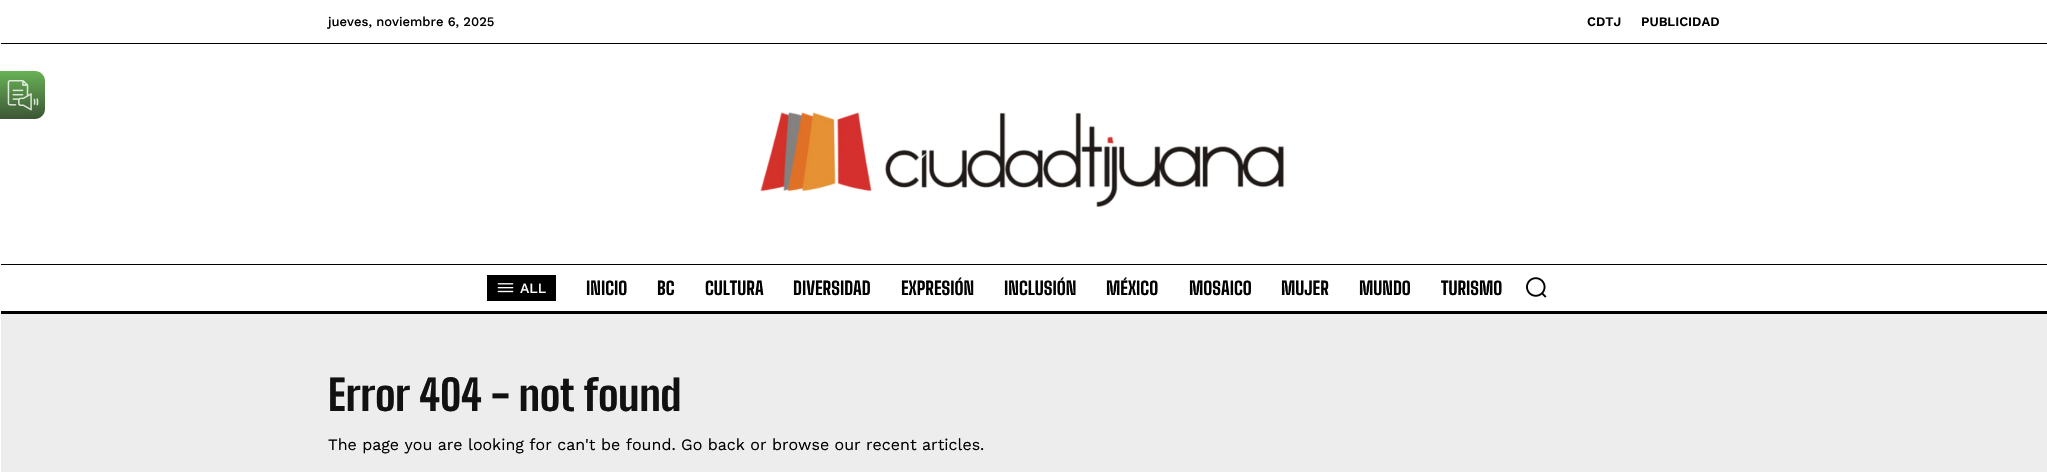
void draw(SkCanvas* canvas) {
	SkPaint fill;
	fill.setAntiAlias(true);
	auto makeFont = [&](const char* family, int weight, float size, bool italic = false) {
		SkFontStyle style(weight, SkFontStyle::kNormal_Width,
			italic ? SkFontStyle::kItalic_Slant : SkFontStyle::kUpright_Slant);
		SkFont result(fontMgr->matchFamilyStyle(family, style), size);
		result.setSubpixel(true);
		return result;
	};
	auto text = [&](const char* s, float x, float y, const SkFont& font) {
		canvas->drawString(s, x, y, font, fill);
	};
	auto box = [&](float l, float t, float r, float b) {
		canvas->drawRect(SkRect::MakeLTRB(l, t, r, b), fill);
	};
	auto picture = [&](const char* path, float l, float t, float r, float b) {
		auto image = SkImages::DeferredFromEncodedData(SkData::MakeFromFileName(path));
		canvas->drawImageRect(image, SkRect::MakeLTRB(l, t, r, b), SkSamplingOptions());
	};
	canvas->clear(0xFFFFFFFF);
	{
		const SkColor colors[] = {0xFF68B255, 0xFF3C5635};
		const float stops[] = {0, 1};
		const SkPoint ends[] = {{22, 71}, {23, 119}};
		fill.setShader(SkGradientShader::MakeLinear(ends, colors, stops, 2, SkTileMode::kClamp));
		fill.setAlpha(255);
	}
	canvas->drawPath(SkPathBuilder().moveTo(0, 71).lineTo(35, 71).cubicTo(40.5f, 71, 45, 75.5f, 45, 81).lineTo(45, 109).cubicTo(45, 114.5f, 40.5f, 119, 35, 119).lineTo(0, 119).close().detach(), fill);
	picture("image0.png", 7, 80, 39, 111);
	fill.setShader(nullptr);
	fill.setColor(0xFF000000);
	box(1, 43, 2047, 44);
	picture("image1.png", 760, 112, 1285, 208);
	box(1, 264, 2047, 265);
	box(1, 311, 2047, 314);
	box(487, 275, 556, 301);
	picture("image2.png", 497, 283, 514, 293);
	picture("image3.png", 1526, 277, 1547, 298);
	fill.setColor(0xFFEDEDED);
	box(1, 314, 2047, 472);
	auto font1 = makeFont("Work Sans", 500, 13);
	fill.setColor(0xFF000000);
	text("jueves, noviembre 6, 2025", 328, 26, font1);
	auto font2 = makeFont("Work Sans", 600, 13);
	text("CDTJ", 1587, 26, font2);
	text("PUBLICIDAD", 1641, 26, font2);
	auto font3 = makeFont("Work Sans", 500, 14);
	fill.setColor(0xFFFFFFFF);
	text("ALL", 520, 293, font3);
	auto font4 = makeFont("Big Shoulders Text", 800, 18);
	fill.setColor(0xFF000000);
	text("INICIO", 586, 295, font4);
	text("BC", 657, 295, font4);
	text("CULTURA", 705, 295, font4);
	text("DIVERSIDAD", 793, 295, font4);
	text("EXPRESIÓN", 901, 295, font4);
	text("INCLUSIÓN", 1004, 295, font4);
	text("MÉXICO", 1106, 295, font4);
	text("MOSAICO", 1189, 295, font4);
	text("MUJER", 1281, 295, font4);
	text("MUNDO", 1359, 295, font4);
	text("TURISMO", 1441, 295, font4);
	auto font5 = makeFont("Big Shoulders Text", 800, 42);
	fill.setColor(0xFF111111);
	text("Error 404 - not found", 328, 411, font5);
	auto font6 = makeFont("Work Sans", 400, 16);
	fill.setColor(0xFF000000);
	text("The page you are looking for can't be found. Go back or browse our recent articles.", 328, 450, font6);
}
